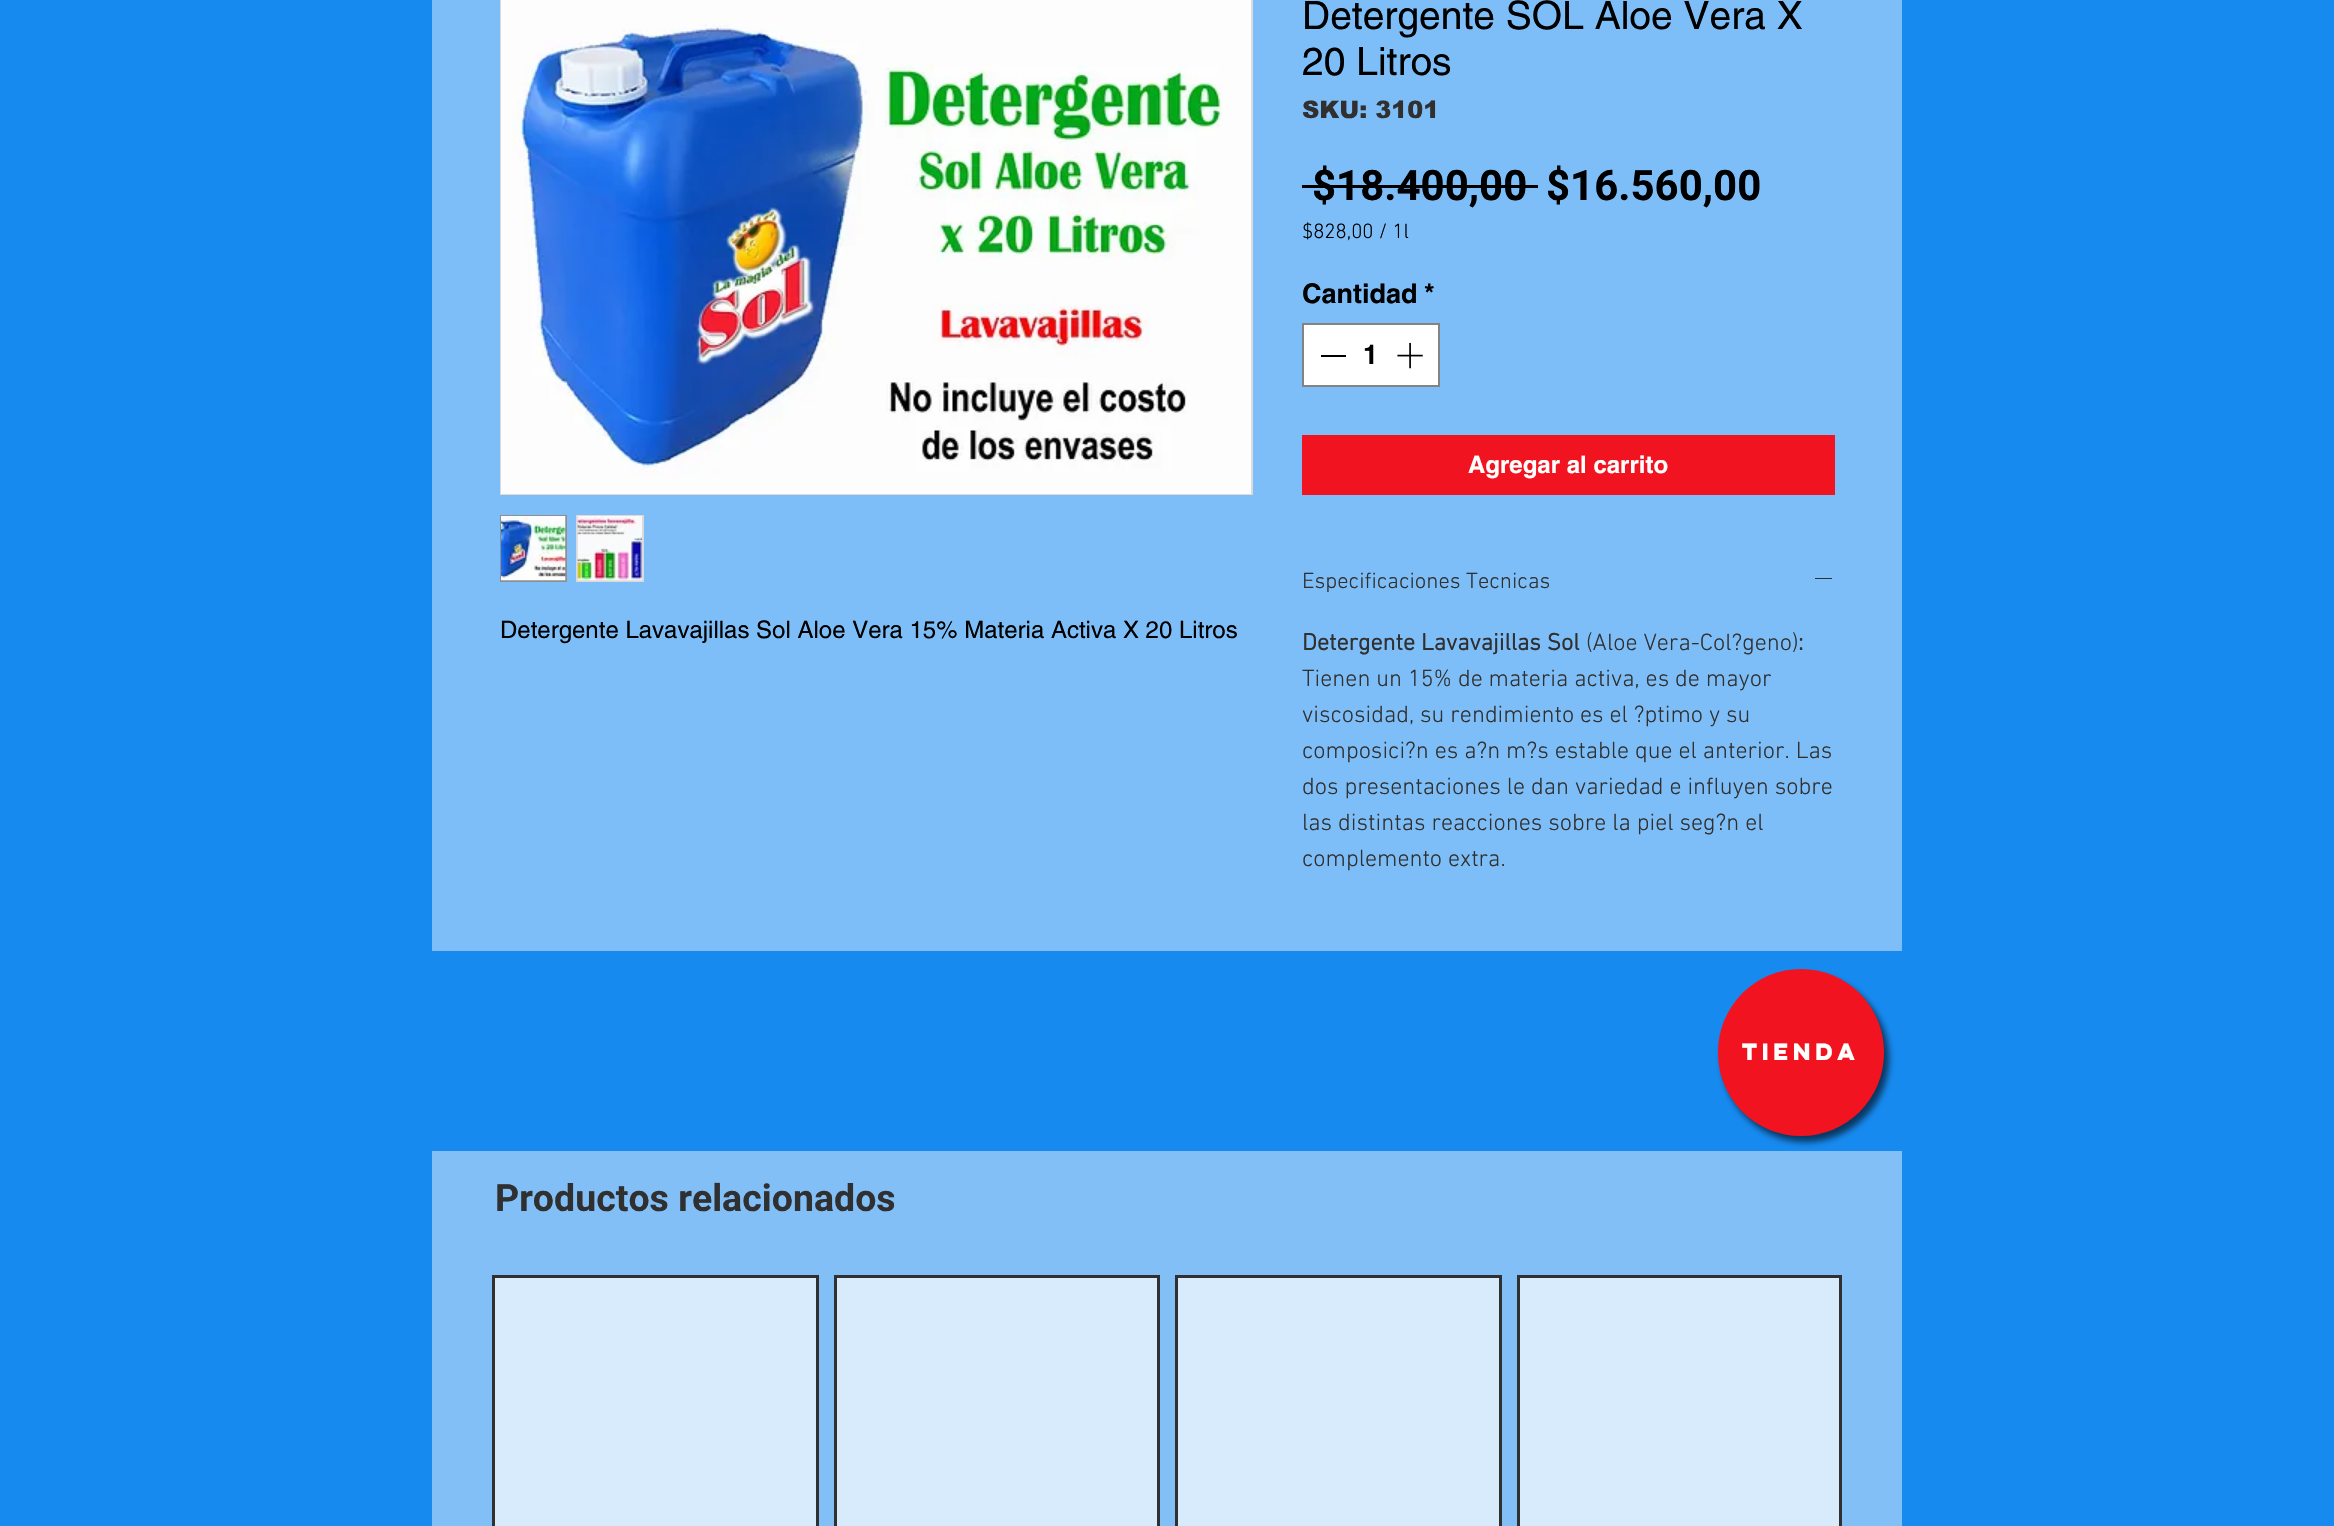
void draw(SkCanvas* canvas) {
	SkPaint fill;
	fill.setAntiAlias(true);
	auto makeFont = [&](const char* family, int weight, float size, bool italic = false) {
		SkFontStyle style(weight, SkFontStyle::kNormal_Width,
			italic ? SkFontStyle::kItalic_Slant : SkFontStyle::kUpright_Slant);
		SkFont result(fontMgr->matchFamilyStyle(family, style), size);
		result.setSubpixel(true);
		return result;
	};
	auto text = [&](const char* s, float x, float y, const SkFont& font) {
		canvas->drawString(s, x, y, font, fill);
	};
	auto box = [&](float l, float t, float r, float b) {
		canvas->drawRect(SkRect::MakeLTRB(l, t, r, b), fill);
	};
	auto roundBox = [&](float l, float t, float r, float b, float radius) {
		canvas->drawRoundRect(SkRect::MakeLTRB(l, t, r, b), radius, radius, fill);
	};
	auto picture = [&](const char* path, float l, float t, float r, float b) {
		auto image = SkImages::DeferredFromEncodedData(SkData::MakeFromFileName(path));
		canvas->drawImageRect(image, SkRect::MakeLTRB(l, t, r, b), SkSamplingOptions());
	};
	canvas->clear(0xFF178AF0);
	fill.setColor(0xFF7DBEF8);
	box(432, 0, 1902, 951);
	fill.setStyle(SkPaint::kStroke_Style);
	fill.setStrokeWidth(2);
	fill.setColor(0xFFDBDBDB);
	canvas->drawRect(SkRect::MakeLTRB(501, -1, 1252, 494), fill);
	picture("image0.png", 501, 0, 1251, 494);
	fill.setColor(0xFF8F8F8F);
	canvas->drawRect(SkRect::MakeLTRB(501, 516, 566, 581), fill);
	picture("image1.png", 501, 516, 566, 581);
	fill.setColor(0xFFDBDBDB);
	canvas->drawRect(SkRect::MakeLTRB(577, 516, 643, 581), fill);
	picture("image2.png", 577, 516, 642, 581);
	fill.setStyle(SkPaint::kFill_Style);
	fill.setColor(0xFF000000);
	box(1302, 185, 1538, 188);
	fill.setColor(0xFFFFFFFF);
	canvas->drawRect(SkRect::MakeLTRB(1303, 324, 1439, 386), fill);
	fill.setStyle(SkPaint::kStroke_Style);
	fill.setColor(0xFF838383);
	canvas->drawRect(SkRect::MakeLTRB(1303, 324, 1439, 386), fill);
	fill.setStyle(SkPaint::kFill_Style);
	fill.setColor(0xFF000000);
	box(1321, 355, 1346, 357);
	picture("image3.png", 1397, 342, 1423, 369);
	fill.setColor(0xFFF21321);
	box(1302, 435, 1835, 495);
	fill.setColor(0xFF303030);
	box(1815, 578, 1832, 579);
	fill.setColor(0x99000000);
	fill.setMaskFilter(SkMaskFilter::MakeBlur(kNormal_SkBlurStyle, 3));
	canvas->drawRoundRect(SkRect::MakeLTRB(1722, 975, 1889, 1142), 83.5f, 83.5f, fill);
	fill.setMaskFilter(nullptr);
	fill.setColor(0xFFF21321);
	roundBox(1718, 969, 1884, 1136, 83);
	fill.setColor(0xFF82BFF7);
	box(432, 1151, 1902, 1526);
	fill.setColor(0xFFD8EBFD);
	canvas->drawRect(SkRect::MakeLTRB(493.5f, 1276.5f, 817.5f, 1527.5f), fill);
	fill.setStyle(SkPaint::kStroke_Style);
	fill.setStrokeWidth(3);
	fill.setColor(0xFF303030);
	canvas->drawRect(SkRect::MakeLTRB(493.5f, 1276.5f, 817.5f, 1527.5f), fill);
	fill.setStyle(SkPaint::kFill_Style);
	fill.setColor(0xFFD8EBFD);
	canvas->drawRect(SkRect::MakeLTRB(835.5f, 1276.5f, 1158.5f, 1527.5f), fill);
	fill.setStyle(SkPaint::kStroke_Style);
	fill.setColor(0xFF303030);
	canvas->drawRect(SkRect::MakeLTRB(835.5f, 1276.5f, 1158.5f, 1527.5f), fill);
	fill.setStyle(SkPaint::kFill_Style);
	fill.setColor(0xFFD8EBFD);
	canvas->drawRect(SkRect::MakeLTRB(1176.5f, 1276.5f, 1500.5f, 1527.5f), fill);
	fill.setStyle(SkPaint::kStroke_Style);
	fill.setColor(0xFF303030);
	canvas->drawRect(SkRect::MakeLTRB(1176.5f, 1276.5f, 1500.5f, 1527.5f), fill);
	fill.setStyle(SkPaint::kFill_Style);
	fill.setColor(0xFFD8EBFD);
	canvas->drawRect(SkRect::MakeLTRB(1518.5f, 1276.5f, 1840.5f, 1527.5f), fill);
	fill.setStyle(SkPaint::kStroke_Style);
	fill.setColor(0xFF303030);
	canvas->drawRect(SkRect::MakeLTRB(1518.5f, 1276.5f, 1840.5f, 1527.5f), fill);
	auto font1 = makeFont("helvetica", 400, 24);
	fill.setStyle(SkPaint::kFill_Style);
	fill.setColor(0xFF000000);
	text("Detergente Lavavajillas Sol Aloe Vera 15% Materia Activa X 20 Litros", 500, 638, font1);
	auto font2 = makeFont("helvetica", 400, 39);
	text("Detergente SOL Aloe Vera X", 1302, 29, font2);
	text("20 Litros", 1302, 75, font2);
	auto font3 = makeFont("arial", 900, 24);
	fill.setColor(0xFF303030);
	text("SKU: 3101", 1302, 118, font3);
	auto font4 = makeFont("Roboto", 700, 42);
	fill.setColor(0xFF000000);
	text("$18.400,00", 1312, 200, font4);
	text("$16.560,00", 1546, 200, font4);
	auto font5 = makeFont("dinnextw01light", 300, 21);
	text("$828,00 / 1l", 1302, 238, font5);
	auto font6 = makeFont("helvetica", 700, 27);
	text("Cantidad", 1302, 303, font6);
	text("*", 1424, 303, font6);
	text("1", 1363, 364, font6);
	auto font7 = makeFont("helvetica", 700, 24);
	fill.setColor(0xFFFFFFFE);
	text("Agregar al carrito", 1468, 473, font7);
	auto font8 = makeFont("dinnextw01light", 300, 22.5f);
	fill.setColor(0xFF303030);
	text("Especificaciones Tecnicas", 1302, 588, font8);
	auto font9 = makeFont("dinnextw01light", 700, 24);
	text("Detergente Lavavajillas Sol", 1302, 650, font9);
	auto font10 = makeFont("dinnextw01light", 300, 24);
	text("(Aloe Vera-Col?geno)", 1586, 650, font10);
	text(":", 1798, 650, font9);
	text("Tienen un 15% de materia activa, es de mayor", 1302, 686, font10);
	text("viscosidad, su rendimiento es el ?ptimo y su", 1302, 722, font10);
	text("composici?n es a?n m?s estable que el anterior. Las", 1302, 758, font10);
	text("dos presentaciones le dan variedad e influyen sobre", 1302, 794, font10);
	text("las distintas reacciones sobre la piel seg?n el", 1302, 830, font10);
	text("complemento extra.", 1302, 866, font10);
	auto font11 = makeFont("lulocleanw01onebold", 700, 21);
	fill.setColor(0xFFFFFFFE);
	text("Tienda", 1742, 1060, font11);
	auto font12 = makeFont("Roboto", 700, 37.5f);
	fill.setColor(0xFF303030);
	text("Productos relacionados", 495, 1211, font12);
}
